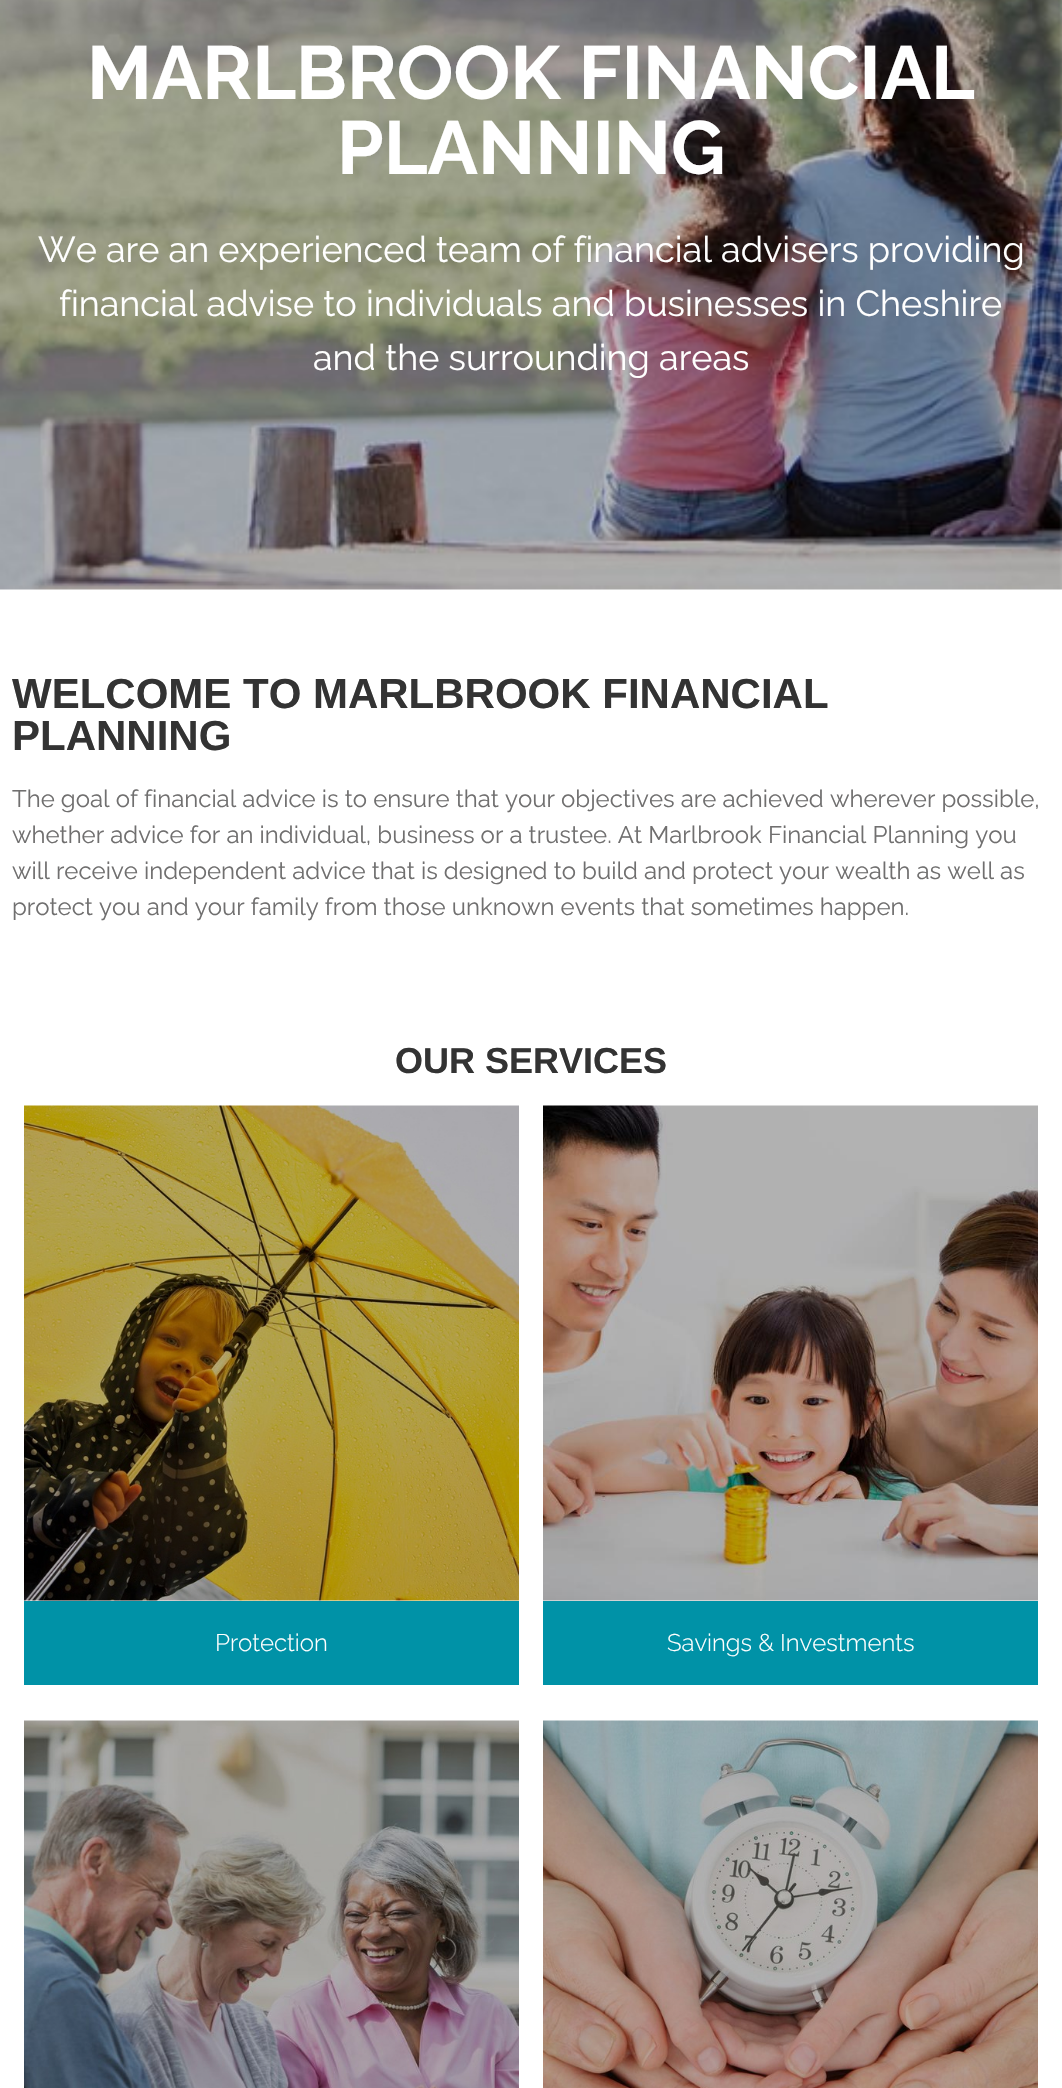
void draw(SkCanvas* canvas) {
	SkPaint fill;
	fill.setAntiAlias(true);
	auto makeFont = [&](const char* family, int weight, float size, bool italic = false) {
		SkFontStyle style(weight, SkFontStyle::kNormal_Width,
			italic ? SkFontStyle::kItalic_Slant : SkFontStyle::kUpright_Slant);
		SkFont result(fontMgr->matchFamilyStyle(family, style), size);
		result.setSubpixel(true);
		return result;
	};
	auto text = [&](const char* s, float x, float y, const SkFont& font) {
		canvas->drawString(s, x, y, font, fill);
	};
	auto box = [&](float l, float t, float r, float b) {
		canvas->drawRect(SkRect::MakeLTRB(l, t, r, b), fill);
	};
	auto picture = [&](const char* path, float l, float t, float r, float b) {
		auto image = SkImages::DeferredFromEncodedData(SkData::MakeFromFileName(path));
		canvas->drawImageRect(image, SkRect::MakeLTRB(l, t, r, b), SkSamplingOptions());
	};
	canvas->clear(0xFFFFFFFF);
	picture("image0.png", 0, 0, 1062, 590);
	picture("image1.png", 24, 1105, 519, 1601);
	fill.setColor(0xFF0092A7);
	box(24, 1601, 519, 1685);
	picture("image2.png", 543, 1105, 1038, 1601);
	box(543, 1601, 1038, 1685);
	picture("image3.png", 24, 1720, 519, 2088);
	picture("image4.png", 543, 1720, 1038, 2088);
	auto font1 = makeFont("Raleway", 700, 75);
	fill.setColor(0xFFFFFFFF);
	text("MARLBROOK FINANCIAL", 87, 99, font1);
	text("PLANNING", 337, 174, font1);
	auto font2 = makeFont("Raleway", 400, 36);
	text("We are an experienced team of financial advisers providing", 38, 262, font2);
	text("financial advise to individuals and businesses in Cheshire", 59, 316, font2);
	text("and the surrounding areas", 313, 370, font2);
	auto font3 = makeFont("Liberation Sans", 700, 42);
	fill.setColor(0xFF333333);
	text("WELCOME TO MARLBROOK FINANCIAL", 12, 708, font3);
	text("PLANNING", 12, 750, font3);
	auto font4 = makeFont("Raleway", 400, 24);
	fill.setColor(0xFF706F6F);
	text("The goal of financial advice is to ensure that your objectives are achieved wherever possible,", 12, 807, font4);
	text("whether advice for an individual, business or a trustee. At Marlbrook Financial Planning you", 12, 843, font4);
	text("will receive independent advice that is designed to build and protect your wealth as well as", 12, 879, font4);
	text("protect you and your family from those unknown events that sometimes happen.", 12, 915, font4);
	auto font5 = makeFont("Liberation Sans", 700, 36);
	fill.setColor(0xFF333333);
	text("OUR SERVICES", 395, 1073, font5);
	auto font6 = makeFont("Raleway", 300, 24);
	fill.setColor(0xFFFFFFFF);
	text("Protection", 215, 1651, font6);
	text("Savings & Investments", 667, 1651, font6);
}
